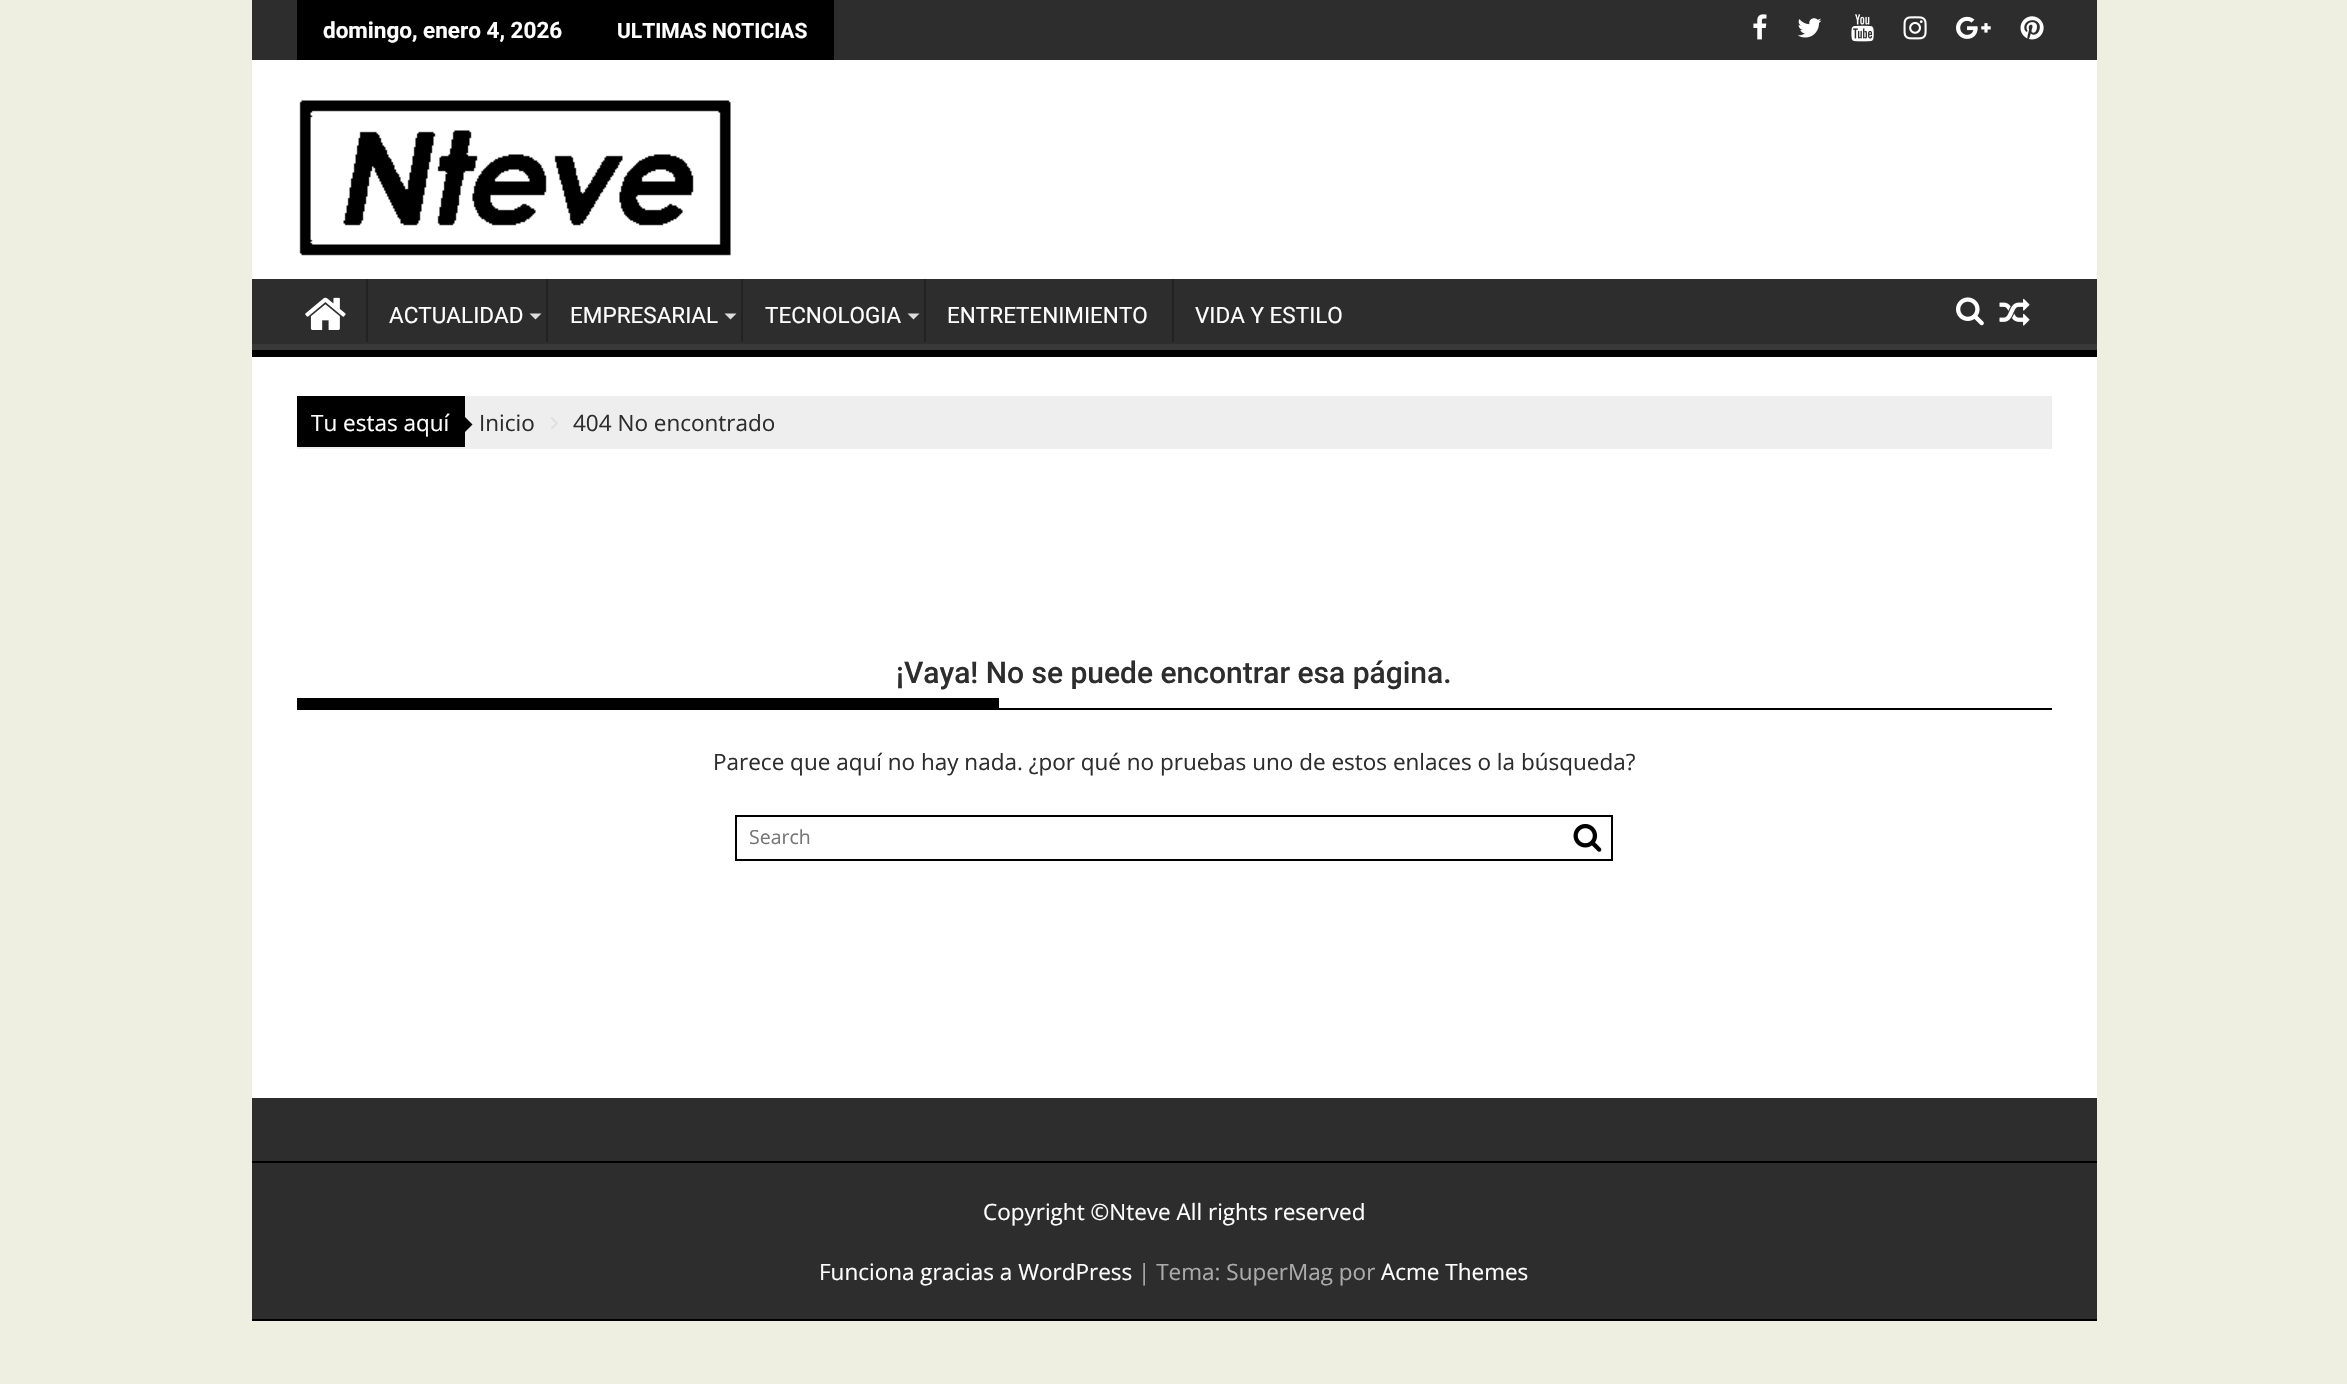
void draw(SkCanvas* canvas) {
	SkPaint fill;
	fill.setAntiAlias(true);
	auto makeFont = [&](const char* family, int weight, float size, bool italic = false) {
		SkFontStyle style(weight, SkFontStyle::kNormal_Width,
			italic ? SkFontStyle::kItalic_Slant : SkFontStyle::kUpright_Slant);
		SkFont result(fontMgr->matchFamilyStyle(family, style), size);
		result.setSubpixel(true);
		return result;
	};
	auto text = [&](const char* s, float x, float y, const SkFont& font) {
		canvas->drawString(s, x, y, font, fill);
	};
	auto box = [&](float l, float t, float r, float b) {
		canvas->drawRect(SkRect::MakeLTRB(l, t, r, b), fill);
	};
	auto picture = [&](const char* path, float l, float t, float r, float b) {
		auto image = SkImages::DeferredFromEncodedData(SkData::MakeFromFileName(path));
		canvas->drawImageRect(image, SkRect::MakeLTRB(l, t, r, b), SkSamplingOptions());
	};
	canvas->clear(0xFFEEEEE1);
	fill.setColor(0xFFFFFFFF);
	box(252, 60, 2097, 1098);
	fill.setColor(0xFF2D2D2D);
	box(252, 0, 2097, 60);
	fill.setColor(0xFF000000);
	box(297, 0, 834, 60);
	picture("image0.png", 1753, 14, 1767, 40);
	picture("image1.png", 1797, 18, 1822, 38);
	picture("image2.png", 1851, 14, 1874, 42);
	picture("image3.png", 1903, 16, 1927, 40);
	picture("image4.png", 1956, 16, 1991, 39);
	picture("image5.png", 2020, 16, 2044, 40);
	picture("image6.png", 299, 100, 731, 256);
	fill.setColor(0xFF2D2D2D);
	box(252, 279, 2097, 344);
	canvas->save();
	canvas->clipRect(SkRect::MakeLTRB(252, 279, 2097, 350));
	fill.setColor(0xFF393939);
	canvas->drawPath(SkPathBuilder(SkPathFillType::kEvenOdd).moveTo(104, 130).lineTo(2246, 130).lineTo(2246, 498).lineTo(104, 498).close().moveTo(250, 270).lineTo(2096, 270).cubicTo(2096, 270, 2097, 271, 2097, 272).lineTo(2097, 342).cubicTo(2097, 343, 2096, 344, 2096, 344).lineTo(250, 344).cubicTo(250, 344, 249, 343, 249, 342).lineTo(249, 272).cubicTo(249, 271, 250, 270, 250, 270).close().detach(), fill);
	canvas->restore();
	fill.setColor(0xFF000000);
	box(252, 350, 2097, 357);
	picture("image7.png", 305, 297, 346, 330);
	fill.setColor(0xFF222222);
	box(366, 279, 368, 342);
	fill.setColor(0xFFDDDDDD);
	canvas->drawPath(SkPathBuilder().moveTo(529.5f, 313.5f).lineTo(541.5f, 313.5f).lineTo(535.5f, 319.5f).close().detach(), fill);
	fill.setColor(0xFF222222);
	box(546, 279, 548, 342);
	fill.setColor(0xFFDDDDDD);
	canvas->drawPath(SkPathBuilder().moveTo(724.5f, 313.5f).lineTo(736.5f, 313.5f).lineTo(730.5f, 319.5f).close().detach(), fill);
	fill.setColor(0xFF222222);
	box(741, 279, 743, 342);
	fill.setColor(0xFFDDDDDD);
	canvas->drawPath(SkPathBuilder().moveTo(907.5f, 313.5f).lineTo(919.5f, 313.5f).lineTo(913.5f, 319.5f).close().detach(), fill);
	fill.setColor(0xFF222222);
	box(924, 279, 926, 342);
	box(1172, 279, 1174, 342);
	picture("image8.png", 1956, 297, 1984, 326);
	picture("image9.png", 1999, 298, 2030, 326);
	fill.setColor(0xFFEEEEEF);
	box(297, 396, 2052, 449);
	fill.setColor(0xFF000000);
	box(297, 396, 465, 447);
	canvas->drawPath(SkPathBuilder().moveTo(465, 432).lineTo(465, 417).lineTo(472.5f, 424.5f).close().detach(), fill);
	picture("image10.png", 551, 417, 558, 430);
	box(297, 708, 2052, 710);
	box(297, 698, 999, 708);
	fill.setStyle(SkPaint::kStroke_Style);
	fill.setStrokeWidth(2);
	canvas->drawRect(SkRect::MakeLTRB(736, 816, 1612, 860), fill);
	picture("image11.png", 1573, 823, 1602, 852);
	fill.setStyle(SkPaint::kFill_Style);
	fill.setColor(0xFF2D2D2D);
	box(252, 1098, 2097, 1319);
	fill.setColor(0xFF000000);
	box(252, 1319, 2097, 1321);
	box(252, 1161, 2097, 1163);
	auto font1 = makeFont("Roboto", 700, 22.5f);
	fill.setColor(0xFFFFFFFF);
	text("domingo, enero 4, 2026", 323, 38, font1);
	auto font2 = makeFont("Roboto", 700, 21);
	text("ULTIMAS NOTICIAS", 617, 38, font2);
	auto font3 = makeFont("Roboto", 400, 22.5f);
	text("ACTUALIDAD", 389, 323, font3);
	text("EMPRESARIAL", 570, 323, font3);
	text("TECNOLOGIA", 765, 323, font3);
	text("ENTRETENIMIENTO", 947, 323, font3);
	text("VIDA Y ESTILO", 1195, 323, font3);
	auto font4 = makeFont("Open Sans", 400, 22.5f);
	text("Tu estas aquí", 311, 431, font4);
	fill.setColor(0xFF2D2D2D);
	text("Inicio", 479, 431, font4);
	text("404 No encontrado", 573, 431, font4);
	auto font5 = makeFont("Roboto", 500, 30);
	text("¡Vaya! No se puede encontrar esa página.", 896, 683, font5);
	text("Parece que aquí no hay nada. ¿por qué no pruebas uno de estos enlaces o la búsqueda?", 713, 770, font4);
	auto font6 = makeFont("Open Sans", 400, 19.5f);
	fill.setColor(0xFF757575);
	text("Search", 749, 844, font6);
	fill.setColor(0xFFFFFFFF);
	text("Copyright ©Nteve All rights reserved", 983, 1220, font4);
	text("Funciona gracias a WordPress", 819, 1280, font4);
	fill.setColor(0xFFABABAB);
	text("| Tema: SuperMag por", 1138, 1280, font4);
	fill.setColor(0xFFFFFFFF);
	text("Acme Themes", 1381, 1280, font4);
}
